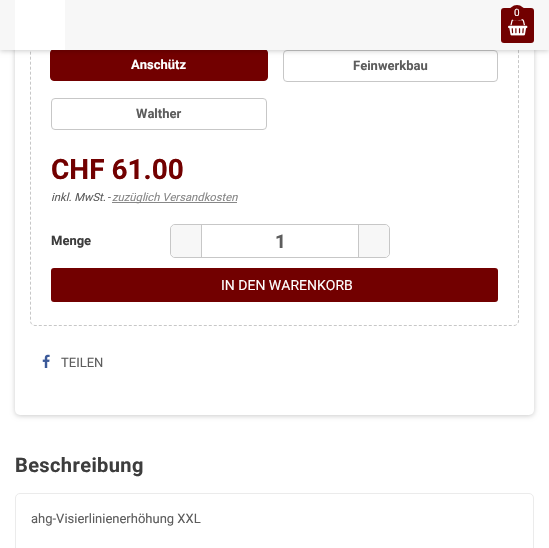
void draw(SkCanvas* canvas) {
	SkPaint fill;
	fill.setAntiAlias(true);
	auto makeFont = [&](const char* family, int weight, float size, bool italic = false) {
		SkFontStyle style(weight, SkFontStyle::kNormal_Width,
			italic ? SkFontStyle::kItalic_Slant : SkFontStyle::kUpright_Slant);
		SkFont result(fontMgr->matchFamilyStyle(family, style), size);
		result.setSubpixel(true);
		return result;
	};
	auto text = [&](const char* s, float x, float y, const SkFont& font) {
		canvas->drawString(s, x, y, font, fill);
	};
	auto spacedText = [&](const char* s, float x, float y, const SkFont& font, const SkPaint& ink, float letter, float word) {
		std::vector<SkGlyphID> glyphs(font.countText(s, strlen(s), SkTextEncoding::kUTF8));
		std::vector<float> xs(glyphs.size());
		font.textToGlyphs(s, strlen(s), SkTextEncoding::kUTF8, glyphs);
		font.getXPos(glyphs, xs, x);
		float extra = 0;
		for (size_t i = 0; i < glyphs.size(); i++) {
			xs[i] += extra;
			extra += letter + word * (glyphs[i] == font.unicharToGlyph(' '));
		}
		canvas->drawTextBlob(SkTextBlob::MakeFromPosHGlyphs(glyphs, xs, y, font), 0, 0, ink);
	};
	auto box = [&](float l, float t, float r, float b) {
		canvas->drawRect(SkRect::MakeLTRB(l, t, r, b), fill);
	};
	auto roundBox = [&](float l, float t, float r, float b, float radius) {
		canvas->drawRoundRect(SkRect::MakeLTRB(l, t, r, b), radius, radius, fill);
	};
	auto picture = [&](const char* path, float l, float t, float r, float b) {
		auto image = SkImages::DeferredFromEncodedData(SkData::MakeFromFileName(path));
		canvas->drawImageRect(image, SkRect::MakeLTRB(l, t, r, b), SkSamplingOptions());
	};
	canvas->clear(0xFFFFFFFF);
	fill.setColor(0x33000000);
	fill.setMaskFilter(SkMaskFilter::MakeBlur(kNormal_SkBlurStyle, 2.5f));
	canvas->drawRoundRect(SkRect::MakeLTRB(15, -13, 534, 416), 5, 5, fill);
	fill.setMaskFilter(nullptr);
	fill.setColor(0xFFFFFFFF);
	roundBox(15, -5, 534, 415, 5);
	fill.setStyle(SkPaint::kStroke_Style);
	fill.setStrokeWidth(1);
	fill.setColor(0xFFC7C7C7);
	fill.setPathEffect(SkDashPathEffect::Make({{3, 2}}, 0));
	canvas->drawPath(SkPathBuilder().moveTo(35, 1.5f).lineTo(514, 1.5f).cubicTo(516.5f, 1.5f, 518.5f, 3.5f, 518.5f, 6).lineTo(518.5f, 321).cubicTo(518.5f, 323.5f, 516.5f, 325.5f, 514, 325.5f).lineTo(35, 325.5f).cubicTo(32.5f, 325.5f, 30.5f, 323.5f, 30.5f, 321).lineTo(30.5f, 6).cubicTo(30.5f, 3.5f, 32.5f, 1.5f, 35, 1.5f).close().detach(), fill);
	fill.setPathEffect(nullptr);
	fill.setStyle(SkPaint::kFill_Style);
	fill.setColor(0xFF720000);
	canvas->drawRoundRect(SkRect::MakeLTRB(50.5f, 49.5f, 267.5f, 80.5f), 3.5f, 3.5f, fill);
	fill.setStyle(SkPaint::kStroke_Style);
	canvas->drawRoundRect(SkRect::MakeLTRB(50.5f, 49.5f, 267.5f, 80.5f), 3.5f, 3.5f, fill);
	fill.setColor(0xFFC7C7C7);
	canvas->drawRoundRect(SkRect::MakeLTRB(283.5f, 50.5f, 497.5f, 81.5f), 3.5f, 3.5f, fill);
	fill.setStyle(SkPaint::kFill_Style);
	fill.setColor(0x33000000);
	fill.setMaskFilter(SkMaskFilter::MakeBlur(kNormal_SkBlurStyle, 2.5f));
	canvas->drawRect(SkRect::MakeLTRB(0, 1, 549, 51), fill);
	fill.setMaskFilter(nullptr);
	fill.setColor(0xFFF7F7F7);
	box(0, 0, 549, 50);
	fill.setColor(0xFFFFFFFF);
	box(15, 0, 65, 50);
	fill.setColor(0xFF720000);
	roundBox(501, 8, 534, 43, 3);
	picture("image0.png", 508, 19, 528, 36);
	canvas->drawCircle(517, 13, 8, fill);
	fill.setStyle(SkPaint::kStroke_Style);
	fill.setColor(0xFFC7C7C7);
	canvas->drawRoundRect(SkRect::MakeLTRB(51.5f, 98.5f, 266.5f, 129.5f), 3.5f, 3.5f, fill);
	fill.setStyle(SkPaint::kFill_Style);
	fill.setColor(0xFF878787);
	box(112, 202, 237, 203);
	fill.setStyle(SkPaint::kStroke_Style);
	fill.setColor(0xFFC7C7C7);
	canvas->drawRoundRect(SkRect::MakeLTRB(170.5f, 224.5f, 389.5f, 257.5f), 4.5f, 4.5f, fill);
	fill.setStyle(SkPaint::kFill_Style);
	fill.setColor(0xFFF7F7F7);
	canvas->drawPath(SkPathBuilder().moveTo(175, 225).lineTo(201, 225).lineTo(201, 257).lineTo(175, 257).cubicTo(173, 257, 171, 255, 171, 253).lineTo(171, 229).cubicTo(171, 227, 173, 225, 175, 225).close().detach(), fill);
	fill.setColor(0xFFC7C7C7);
	box(358, 225, 359, 257);
	box(201, 225, 202, 257);
	fill.setColor(0xFFF7F7F7);
	canvas->drawPath(SkPathBuilder().moveTo(359, 225).lineTo(385, 225).cubicTo(387, 225, 389, 227, 389, 229).lineTo(389, 253).cubicTo(389, 255, 387, 257, 385, 257).lineTo(359, 257).close().detach(), fill);
	fill.setColor(0xFF720000);
	roundBox(51, 268, 498, 302, 3);
	picture("image1.png", 42, 354, 50, 368);
	fill.setStyle(SkPaint::kStroke_Style);
	fill.setColor(0xFFEBEBEB);
	canvas->drawRoundRect(SkRect::MakeLTRB(15.5f, 493.5f, 533.5f, 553.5f), 4.5f, 4.5f, fill);
	auto font1 = makeFont("Roboto", 400, 10);
	fill.setStyle(SkPaint::kFill_Style);
	fill.setColor(0xFFFFFFFF);
	text("0", 514, 16, font1);
	auto font2 = makeFont("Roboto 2", 700, 13);
	text("Anschütz", 131, 69, font2);
	fill.setColor(0xFF5D5D5D);
	text("Feinwerkbau", 353, 70, font2);
	text("Walther", 136, 118, font2);
	auto font3 = makeFont("Roboto 2", 700, 28);
	fill.setColor(0xFF720000);
	text("CHF 61.00", 51, 179, font3);
	auto font4 = makeFont("Roboto", 400, 11.25f, true);
	fill.setColor(0xFF5D5D5D);
	text("inkl. MwSt.", 51, 201, font4);
	text("-", 107, 201, font4);
	fill.setColor(0xFF878787);
	text("zuzüglich Versandkosten", 112, 201, font4);
	fill.setColor(0xFF3D3D3D);
	text("Menge", 51, 245, font2);
	auto font5 = makeFont("Roboto 2", 700, 19);
	fill.setColor(0xFF5D5D5D);
	text("1", 275, 248, font5);
	auto font6 = makeFont("Roboto", 400, 14);
	fill.setColor(0xFFFFFFFF);
	text("IN DEN WARENKORB", 221, 290, font6);
	auto font7 = makeFont("Roboto", 400, 13);
	fill.setColor(0xFF5D5D5D);
	text("TEILEN", 61, 367, font7);
	auto font8 = makeFont("Roboto", 700, 20);
	fill.setColor(0xFF3D3D3D);
	spacedText("Beschreibung", 15, 472, font8, fill, 0.4f, 0);
	fill.setColor(0xFF5D5D5D);
	text("ahg-Visierlinienerhöhung XXL", 31, 523, font7);
}
